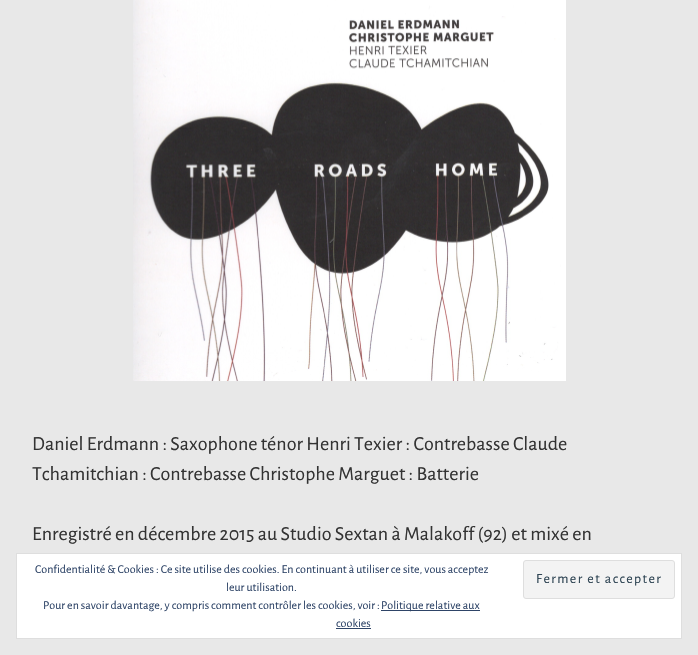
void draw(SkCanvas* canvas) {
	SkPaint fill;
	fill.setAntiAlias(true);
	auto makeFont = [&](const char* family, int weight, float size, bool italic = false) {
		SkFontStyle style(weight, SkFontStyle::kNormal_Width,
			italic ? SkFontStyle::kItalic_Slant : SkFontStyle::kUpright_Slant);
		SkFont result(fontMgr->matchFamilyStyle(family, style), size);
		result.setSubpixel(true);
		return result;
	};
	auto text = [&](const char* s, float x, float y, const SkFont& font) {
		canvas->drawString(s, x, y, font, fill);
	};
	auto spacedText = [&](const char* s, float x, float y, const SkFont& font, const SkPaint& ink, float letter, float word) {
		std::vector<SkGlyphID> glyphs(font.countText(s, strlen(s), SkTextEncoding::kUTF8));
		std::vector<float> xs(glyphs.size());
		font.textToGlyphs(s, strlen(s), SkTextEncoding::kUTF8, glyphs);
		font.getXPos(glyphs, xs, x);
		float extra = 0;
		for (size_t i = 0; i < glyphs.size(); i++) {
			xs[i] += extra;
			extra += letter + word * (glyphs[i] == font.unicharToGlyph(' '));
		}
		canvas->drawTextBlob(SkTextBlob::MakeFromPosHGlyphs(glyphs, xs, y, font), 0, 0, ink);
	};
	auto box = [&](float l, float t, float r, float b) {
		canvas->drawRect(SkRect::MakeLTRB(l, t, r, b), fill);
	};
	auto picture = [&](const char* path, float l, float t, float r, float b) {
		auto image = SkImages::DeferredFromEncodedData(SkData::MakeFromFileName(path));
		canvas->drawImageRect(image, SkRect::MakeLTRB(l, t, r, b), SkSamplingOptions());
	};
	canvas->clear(0xFFE8E8E8);
	picture("image0.png", 133, 0, 566, 381);
	fill.setColor(0xFFFFFFFF);
	canvas->drawRect(SkRect::MakeLTRB(16.5f, 553.5f, 681.5f, 638.5f), fill);
	fill.setStyle(SkPaint::kStroke_Style);
	fill.setStrokeWidth(1);
	fill.setColor(0xFFDEDEDE);
	canvas->drawRect(SkRect::MakeLTRB(16.5f, 553.5f, 681.5f, 638.5f), fill);
	fill.setStyle(SkPaint::kFill_Style);
	fill.setColor(0xFFF3F3F3);
	canvas->drawRoundRect(SkRect::MakeLTRB(523.5f, 560.5f, 674.5f, 598.5f), 2.5f, 2.5f, fill);
	fill.setStyle(SkPaint::kStroke_Style);
	fill.setColor(0xFFDEDEDE);
	canvas->drawRoundRect(SkRect::MakeLTRB(523.5f, 560.5f, 674.5f, 598.5f), 2.5f, 2.5f, fill);
	fill.setStyle(SkPaint::kFill_Style);
	fill.setColor(0xFF2E4467);
	box(381, 610, 480, 611);
	box(336, 628, 371, 629);
	auto font1 = makeFont("Alegreya Sans", 400, 20);
	fill.setColor(0xFF333333);
	text("Daniel Erdmann : Saxophone ténor Henri Texier : Contrebasse Claude", 32, 450, font1);
	text("Tchamitchian : Contrebasse Christophe Marguet : Batterie", 32, 480, font1);
	text("Enregistré en décembre 2015 au Studio Sextan à Malakoff (92) et mixé en", 32, 540, font1);
	auto font2 = makeFont("Alegreya Sans", 400, 12);
	fill.setColor(0xFF2E4467);
	text("Confidentialité & Cookies : Ce site utilise des cookies. En continuant à utiliser ce site, vous acceptez", 35, 573, font2);
	auto font3 = makeFont("Alegreya Sans", 400, 14);
	fill.setColor(0xFF2E4453);
	spacedText("Fermer et accepter", 536, 583, font3, fill, 1.4f, 0);
	fill.setColor(0xFF2E4467);
	text("leur utilisation.", 226, 591, font2);
	text("Pour en savoir davantage, y compris comment contrôler les cookies, voir :", 43, 609, font2);
	text("Politique relative aux", 381, 609, font2);
	text("cookies", 336, 627, font2);
}
